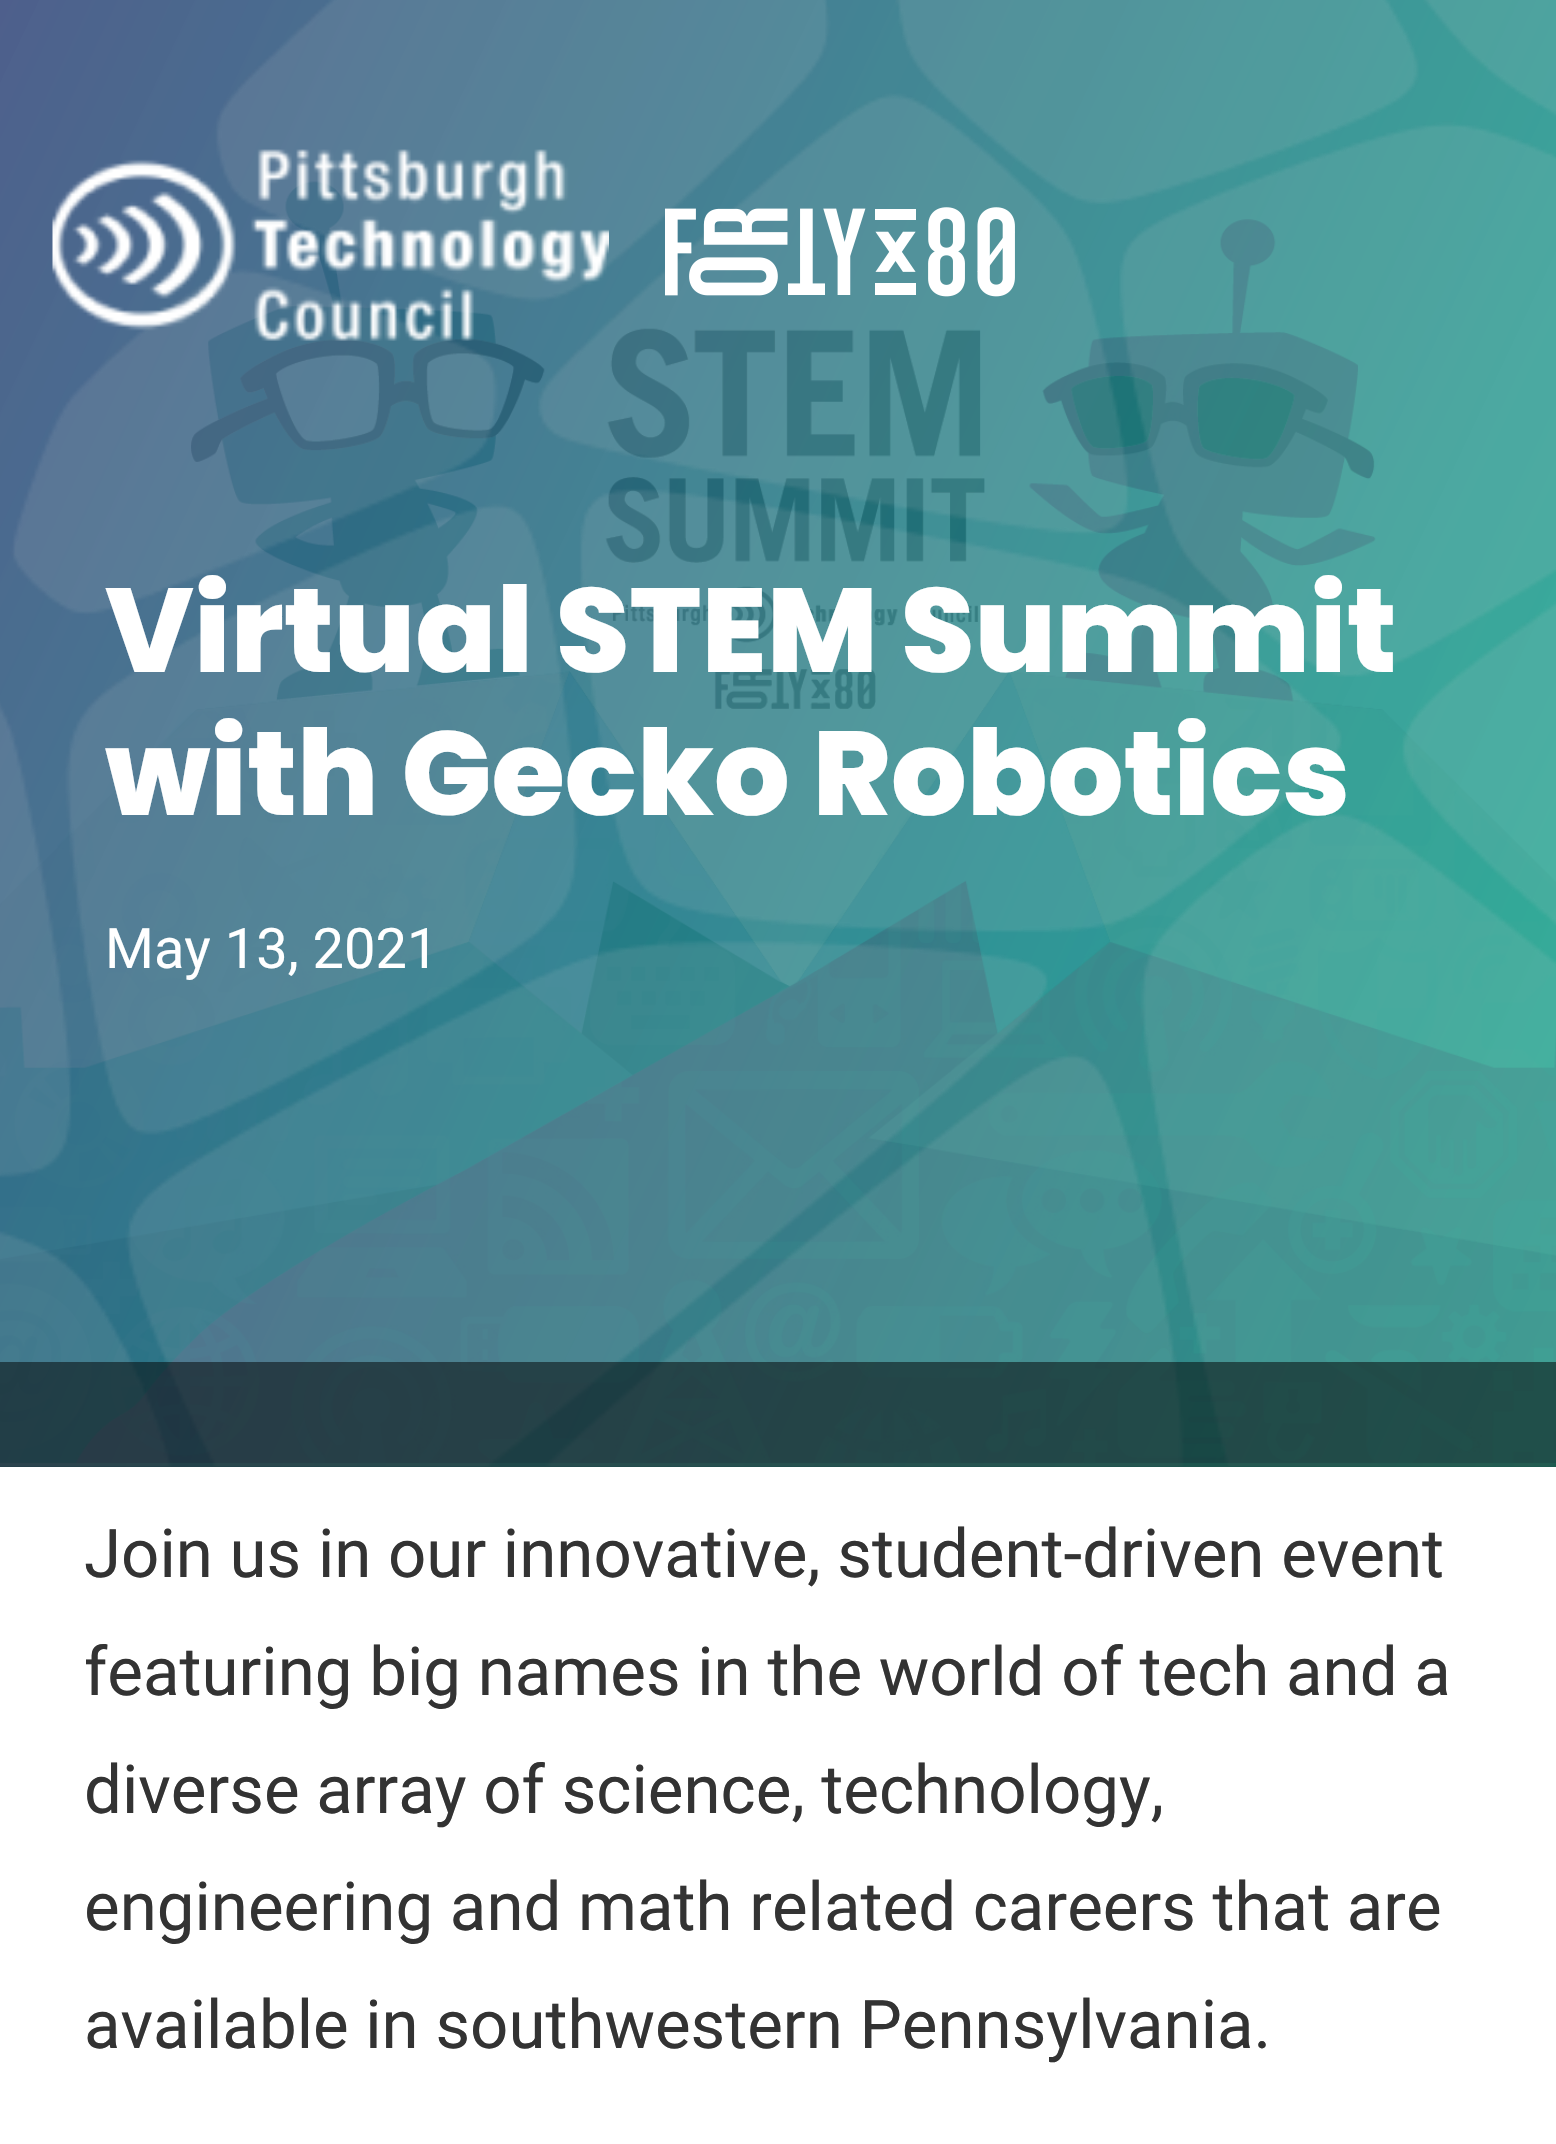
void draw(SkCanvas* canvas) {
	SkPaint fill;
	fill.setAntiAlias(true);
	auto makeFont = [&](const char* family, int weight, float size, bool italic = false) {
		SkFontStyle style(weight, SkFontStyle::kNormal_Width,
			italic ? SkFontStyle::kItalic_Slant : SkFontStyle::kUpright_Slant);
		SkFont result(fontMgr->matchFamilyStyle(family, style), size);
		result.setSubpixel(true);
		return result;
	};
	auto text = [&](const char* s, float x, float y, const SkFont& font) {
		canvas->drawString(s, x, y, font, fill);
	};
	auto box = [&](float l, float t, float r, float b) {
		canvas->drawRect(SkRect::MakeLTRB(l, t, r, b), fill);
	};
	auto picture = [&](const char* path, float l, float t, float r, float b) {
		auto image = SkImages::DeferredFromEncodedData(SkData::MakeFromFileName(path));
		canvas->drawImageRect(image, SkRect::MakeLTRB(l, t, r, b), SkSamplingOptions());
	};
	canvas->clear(0xFFFFFFFF);
	picture("image2.png", 0, 181, 1556, 1467);
	{
		const SkColor colors[] = {0xC900A485, 0xE63B4E80};
		const float stops[] = {0, 1};
		const SkPoint ends[] = {{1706, 1171}, {-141, 299}};
		fill.setShader(SkGradientShader::MakeLinear(ends, colors, stops, 2, SkTileMode::kClamp));
		fill.setAlpha(255);
	}
	box(0, 0, 1556, 1467);
	picture("image3.png", 0, 0, 1556, 1467);
	picture("image0.png", 52, 149, 609, 341);
	picture("image1.png", 665, 207, 1015, 297);
	fill.setShader(nullptr);
	fill.setColor(0x80000000);
	box(0, 1362, 1556, 1467);
	auto font1 = makeFont("Poppins", 800, 119);
	fill.setColor(0xFFFFFFFF);
	text("Virtual STEM Summit", 105, 672, font1);
	text("with Gecko Robotics", 105, 815, font1);
	auto font2 = makeFont("Roboto", 400, 56);
	text("May 13, 2021", 105, 968, font2);
	auto font3 = makeFont("Roboto", 400, 67.2f);
	fill.setColor(0xFF333333);
	text("Join us in our innovative, student-driven event", 84, 1577, font3);
	text("featuring big names in the world of tech and a", 84, 1695, font3);
	text("diverse array of science, technology,", 84, 1813, font3);
	text("engineering and math related careers that are", 84, 1930, font3);
	text("available in southwestern Pennsylvania.", 84, 2048, font3);
}
